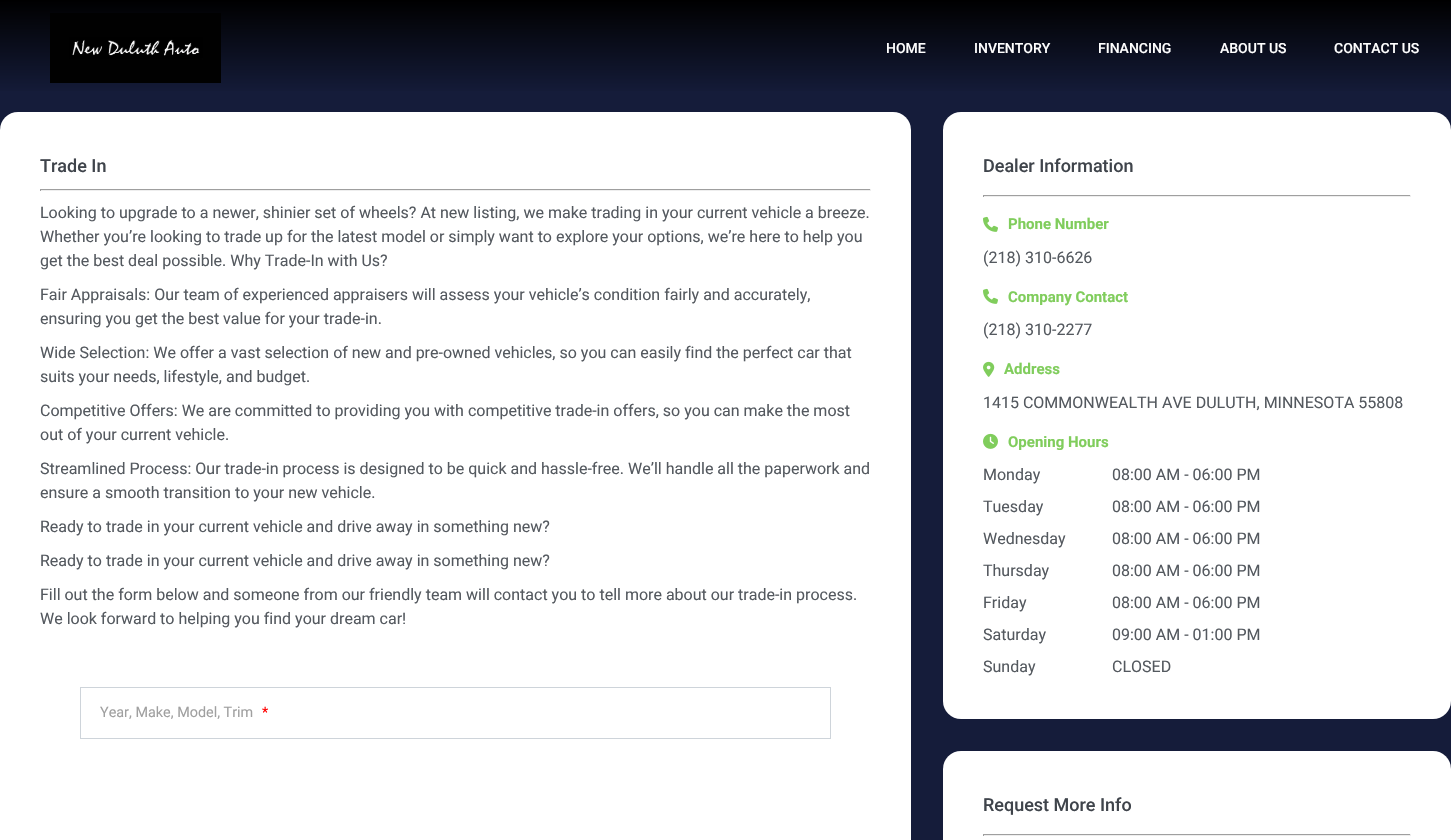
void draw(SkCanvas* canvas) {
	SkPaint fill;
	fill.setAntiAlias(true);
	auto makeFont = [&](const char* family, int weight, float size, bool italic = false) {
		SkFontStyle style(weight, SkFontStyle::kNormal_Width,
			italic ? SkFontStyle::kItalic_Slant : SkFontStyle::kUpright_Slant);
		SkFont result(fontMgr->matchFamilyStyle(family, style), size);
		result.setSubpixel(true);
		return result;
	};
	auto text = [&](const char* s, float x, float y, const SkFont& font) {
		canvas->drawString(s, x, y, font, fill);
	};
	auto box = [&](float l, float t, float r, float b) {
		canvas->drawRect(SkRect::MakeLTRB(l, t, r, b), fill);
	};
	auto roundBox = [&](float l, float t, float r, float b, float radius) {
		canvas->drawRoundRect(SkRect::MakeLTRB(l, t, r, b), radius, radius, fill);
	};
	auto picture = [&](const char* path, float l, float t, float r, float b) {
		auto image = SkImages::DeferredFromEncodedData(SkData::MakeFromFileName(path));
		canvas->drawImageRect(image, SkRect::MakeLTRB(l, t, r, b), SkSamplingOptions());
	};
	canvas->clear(0xFF151C3A);
	{
		const SkColor colors[] = {0xFF000000, 0xFF151C3A};
		const float stops[] = {0, 1};
		const SkPoint ends[] = {{726, 0}, {726, 95}};
		fill.setShader(SkGradientShader::MakeLinear(ends, colors, stops, 2, SkTileMode::kClamp));
		fill.setAlpha(255);
	}
	box(0, 0, 1451, 91);
	picture("image0.png", 50, 13, 221, 83);
	fill.setShader(nullptr);
	fill.setColor(0xFFFFFFFF);
	roundBox(0, 112, 911, 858, 18);
	fill.setColor(0xFF9F9F9F);
	box(40, 189, 871, 190);
	fill.setColor(0xFFEEEEEE);
	box(870, 189, 871, 191);
	box(40, 190, 871, 191);
	fill.setColor(0xFF9F9F9F);
	box(40, 189, 41, 191);
	fill.setStyle(SkPaint::kStroke_Style);
	fill.setStrokeWidth(1);
	fill.setColor(0xFFCED4DA);
	canvas->drawRect(SkRect::MakeLTRB(80.5f, 687.5f, 830.5f, 738.5f), fill);
	fill.setStyle(SkPaint::kFill_Style);
	fill.setColor(0xFFFFFFFF);
	roundBox(943, 112, 1451, 719, 18);
	fill.setColor(0xFF9F9F9F);
	box(983, 195, 1411, 196);
	fill.setColor(0xFFEEEEEE);
	box(1410, 195, 1411, 197);
	box(983, 196, 1411, 197);
	fill.setColor(0xFF9F9F9F);
	box(983, 195, 984, 197);
	picture("image1.png", 983, 216, 998, 232);
	picture("image1.png", 983, 288, 998, 304);
	picture("image2.png", 983, 361, 995, 377);
	picture("image3.png", 983, 433, 998, 449);
	fill.setColor(0xFFFFFFFF);
	roundBox(943, 751, 1451, 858, 18);
	fill.setColor(0xFF9F9F9F);
	box(983, 834, 1411, 835);
	fill.setColor(0xFFEEEEEE);
	box(1410, 834, 1411, 836);
	box(983, 835, 1411, 836);
	fill.setColor(0xFF9F9F9F);
	box(983, 834, 984, 836);
	auto font1 = makeFont("Roboto", 500, 14);
	fill.setColor(0xFFFFFFFF);
	text("HOME", 886, 53, font1);
	text("INVENTORY", 974, 53, font1);
	text("FINANCING", 1098, 53, font1);
	text("ABOUT US", 1220, 53, font1);
	text("CONTACT US", 1334, 53, font1);
	auto font2 = makeFont("Roboto", 500, 18);
	fill.setColor(0xFF3F444B);
	text("Trade In", 40, 172, font2);
	auto font3 = makeFont("Roboto", 400, 16);
	fill.setColor(0xFF54595F);
	text("Looking to upgrade to a newer, shinier set of wheels? At new listing, we make trading in your current vehicle a breeze.", 40, 218, font3);
	text("Whether you’re looking to trade up for the latest model or simply want to explore your options, we’re here to help you", 40, 242, font3);
	text("get the best deal possible. Why Trade-In with Us?", 40, 266, font3);
	text("Fair Appraisals: Our team of experienced appraisers will assess your vehicle’s condition fairly and accurately,", 40, 300, font3);
	text("ensuring you get the best value for your trade-in.", 40, 324, font3);
	text("Wide Selection: We offer a vast selection of new and pre-owned vehicles, so you can easily find the perfect car that", 40, 358, font3);
	text("suits your needs, lifestyle, and budget.", 40, 382, font3);
	text("Competitive Offers: We are committed to providing you with competitive trade-in offers, so you can make the most", 40, 416, font3);
	text("out of your current vehicle.", 40, 440, font3);
	text("Streamlined Process: Our trade-in process is designed to be quick and hassle-free. We’ll handle all the paperwork and", 40, 474, font3);
	text("ensure a smooth transition to your new vehicle.", 40, 498, font3);
	text("Ready to trade in your current vehicle and drive away in something new?", 40, 532, font3);
	text("Ready to trade in your current vehicle and drive away in something new?", 40, 566, font3);
	text("Fill out the form below and someone from our friendly team will contact you to tell more about our trade-in process.", 40, 600, font3);
	text("We look forward to helping you find your dream car!", 40, 624, font3);
	auto font4 = makeFont("Roboto", 400, 14.4f);
	fill.setColor(0xFFA0A0A0);
	text("Year, Make, Model, Trim", 100, 717, font4);
	fill.setColor(0xFFFF0000);
	text("*", 262, 717, font4);
	fill.setColor(0xFF3F444B);
	text("Dealer Information", 983, 172, font2);
	auto font5 = makeFont("Roboto", 700, 15);
	fill.setColor(0xFF80CD5C);
	text("Phone Number", 1008, 229, font5);
	fill.setColor(0xFF54595F);
	text("(218) 310-6626", 983, 263, font3);
	fill.setColor(0xFF80CD5C);
	text("Company Contact", 1008, 302, font5);
	fill.setColor(0xFF54595F);
	text("(218) 310-2277", 983, 335, font3);
	fill.setColor(0xFF80CD5C);
	text("Address", 1004, 374, font5);
	fill.setColor(0xFF54595F);
	text("1415 COMMONWEALTH AVE DULUTH, MINNESOTA 55808", 983, 408, font3);
	fill.setColor(0xFF80CD5C);
	text("Opening Hours", 1008, 447, font5);
	fill.setColor(0xFF54595F);
	text("Monday", 983, 480, font3);
	text("08:00 AM - 06:00 PM", 1112, 480, font3);
	text("Tuesday", 983, 512, font3);
	text("08:00 AM - 06:00 PM", 1112, 512, font3);
	text("Wednesday", 983, 544, font3);
	text("08:00 AM - 06:00 PM", 1112, 544, font3);
	text("Thursday", 983, 576, font3);
	text("08:00 AM - 06:00 PM", 1112, 576, font3);
	text("Friday", 983, 608, font3);
	text("08:00 AM - 06:00 PM", 1112, 608, font3);
	text("Saturday", 983, 640, font3);
	text("09:00 AM - 01:00 PM", 1112, 640, font3);
	text("Sunday", 983, 672, font3);
	text("CLOSED", 1112, 672, font3);
	fill.setColor(0xFF3F444B);
	text("Request More Info", 983, 811, font2);
}
